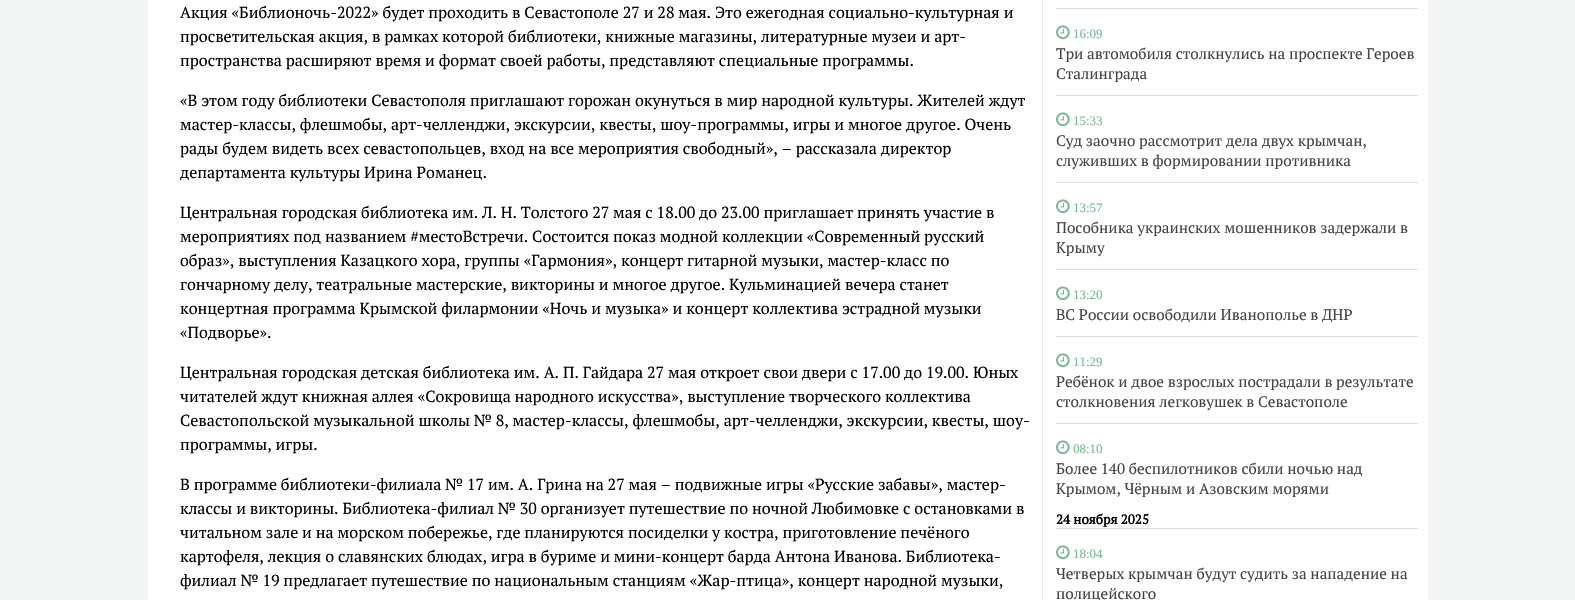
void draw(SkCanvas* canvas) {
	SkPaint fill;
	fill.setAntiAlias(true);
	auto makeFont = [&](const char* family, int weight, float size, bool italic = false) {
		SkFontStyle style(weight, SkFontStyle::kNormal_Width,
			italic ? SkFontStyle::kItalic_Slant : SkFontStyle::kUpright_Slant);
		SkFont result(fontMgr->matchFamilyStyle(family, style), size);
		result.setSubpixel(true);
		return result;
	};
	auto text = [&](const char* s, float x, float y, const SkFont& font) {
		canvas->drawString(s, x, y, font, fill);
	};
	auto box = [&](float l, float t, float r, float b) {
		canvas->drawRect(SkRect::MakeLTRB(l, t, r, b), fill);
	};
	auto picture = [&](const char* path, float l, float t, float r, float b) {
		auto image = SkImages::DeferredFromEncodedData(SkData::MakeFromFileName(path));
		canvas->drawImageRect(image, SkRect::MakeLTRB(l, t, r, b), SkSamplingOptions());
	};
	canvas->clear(0xFFF4F6F6);
	fill.setColor(0xFFFFFFFF);
	box(148, 0, 1428, 600);
	fill.setColor(0xFFE9E9E9);
	box(1042, 0, 1043, 600);
	fill.setColor(0xFFDCDCDC);
	box(1056, 8, 1418, 9);
	picture("image0.png", 1056, 25, 1070, 40);
	box(1056, 95, 1418, 96);
	picture("image0.png", 1056, 112, 1070, 127);
	box(1056, 182, 1418, 183);
	picture("image0.png", 1056, 199, 1070, 214);
	box(1056, 269, 1418, 270);
	picture("image0.png", 1056, 286, 1070, 301);
	box(1056, 336, 1418, 337);
	picture("image0.png", 1056, 353, 1070, 368);
	box(1056, 423, 1418, 424);
	picture("image0.png", 1056, 440, 1070, 455);
	box(1056, 528, 1418, 529);
	picture("image0.png", 1056, 545, 1070, 560);
	auto font1 = makeFont("PT Serif", 400, 16);
	fill.setColor(0xFF000000);
	text("Акция «Библионочь-2022» будет проходить в Севастополе 27 и 28 мая. Это ежегодная социально-культурная и", 180, 18, font1);
	text("просветительская акция, в рамках которой библиотеки, книжные магазины, литературные музеи и арт-", 180, 42, font1);
	text("пространства расширяют время и формат своей работы, представляют специальные программы.", 180, 66, font1);
	text("«В этом году библиотеки Севастополя приглашают горожан окунуться в мир народной культуры. Жителей ждут", 180, 106, font1);
	text("мастер-классы, флешмобы, арт-челленджи, экскурсии, квесты, шоу-программы, игры и многое другое. Очень", 180, 130, font1);
	text("рады будем видеть всех севастопольцев, вход на все мероприятия свободный», – рассказала директор", 180, 154, font1);
	text("департамента культуры Ирина Романец.", 180, 178, font1);
	text("Центральная городская библиотека им. Л. Н. Толстого 27 мая с 18.00 до 23.00 приглашает принять участие в", 180, 218, font1);
	text("мероприятиях под названием #местоВстречи. Состоится показ модной коллекции «Современный русский", 180, 242, font1);
	text("образ», выступления Казацкого хора, группы «Гармония», концерт гитарной музыки, мастер-класс по", 180, 266, font1);
	text("гончарному делу, театральные мастерские, викторины и многое другое. Кульминацией вечера станет", 180, 290, font1);
	text("концертная программа Крымской филармонии «Ночь и музыка» и концерт коллектива эстрадной музыки", 180, 314, font1);
	text("«Подворье».", 180, 338, font1);
	text("Центральная городская детская библиотека им. А. П. Гайдара 27 мая откроет свои двери с 17.00 до 19.00. Юных", 180, 378, font1);
	text("читателей ждут книжная аллея «Сокровища народного искусства», выступление творческого коллектива", 180, 402, font1);
	text("Севастопольской музыкальной школы № 8, мастер-классы, флешмобы, арт-челленджи, экскурсии, квесты, шоу-", 180, 426, font1);
	text("программы, игры.", 180, 450, font1);
	text("В программе библиотеки-филиала № 17 им. А. Грина на 27 мая – подвижные игры «Русские забавы», мастер-", 180, 490, font1);
	text("классы и викторины. Библиотека-филиал № 30 организует путешествие по ночной Любимовке с остановками в", 180, 514, font1);
	text("читальном зале и на морском побережье, где планируются посиделки у костра, приготовление печёного", 180, 538, font1);
	text("картофеля, лекция о славянских блюдах, игра в буриме и мини-концерт барда Антона Иванова. Библиотека-", 180, 562, font1);
	text("филиал № 19 предлагает путешествие по национальным станциям «Жар-птица», концерт народной музыки,", 180, 586, font1);
	auto font2 = makeFont("Liberation Serif", 400, 13);
	fill.setColor(0xFF78B992);
	text("16:09", 1073, 38, font2);
	canvas->save();
	canvas->clipRect(SkRect::MakeLTRB(1056, 9, 1418, 95));
	auto font3 = makeFont("PT Serif", 400, 15.2f);
	fill.setColor(0xFF434343);
	text("Три автомобиля столкнулись на проспекте Героев", 1056, 59, font3);
	canvas->restore();
	text("Сталинграда", 1056, 79, font3);
	fill.setColor(0xFF78B992);
	text("15:33", 1073, 125, font2);
	fill.setColor(0xFF434343);
	text("Суд заочно рассмотрит дела двух крымчан,", 1056, 146, font3);
	text("служивших в формировании противника", 1056, 166, font3);
	fill.setColor(0xFF78B992);
	text("13:57", 1073, 212, font2);
	fill.setColor(0xFF434343);
	text("Пособника украинских мошенников задержали в", 1056, 233, font3);
	text("Крыму", 1056, 253, font3);
	fill.setColor(0xFF78B992);
	text("13:20", 1073, 299, font2);
	fill.setColor(0xFF434343);
	text("ВС России освободили Иванополье в ДНР", 1056, 320, font3);
	fill.setColor(0xFF78B992);
	text("11:29", 1073, 366, font2);
	fill.setColor(0xFF434343);
	text("Ребёнок и двое взрослых пострадали в результате", 1056, 387, font3);
	text("столкновения легковушек в Севастополе", 1056, 407, font3);
	fill.setColor(0xFF78B992);
	text("08:10", 1073, 453, font2);
	fill.setColor(0xFF434343);
	text("Более 140 беспилотников сбили ночью над", 1056, 474, font3);
	text("Крымом, Чёрным и Азовским морями", 1056, 494, font3);
	auto font4 = makeFont("PT Serif", 700, 13.25f);
	fill.setColor(0xFF000000);
	text("24 ноября 2025", 1056, 524, font4);
	fill.setColor(0xFF78B992);
	text("18:04", 1073, 558, font2);
	fill.setColor(0xFF434343);
	text("Четверых крымчан будут судить за нападение на", 1056, 579, font3);
	text("полицейского", 1056, 599, font3);
}
